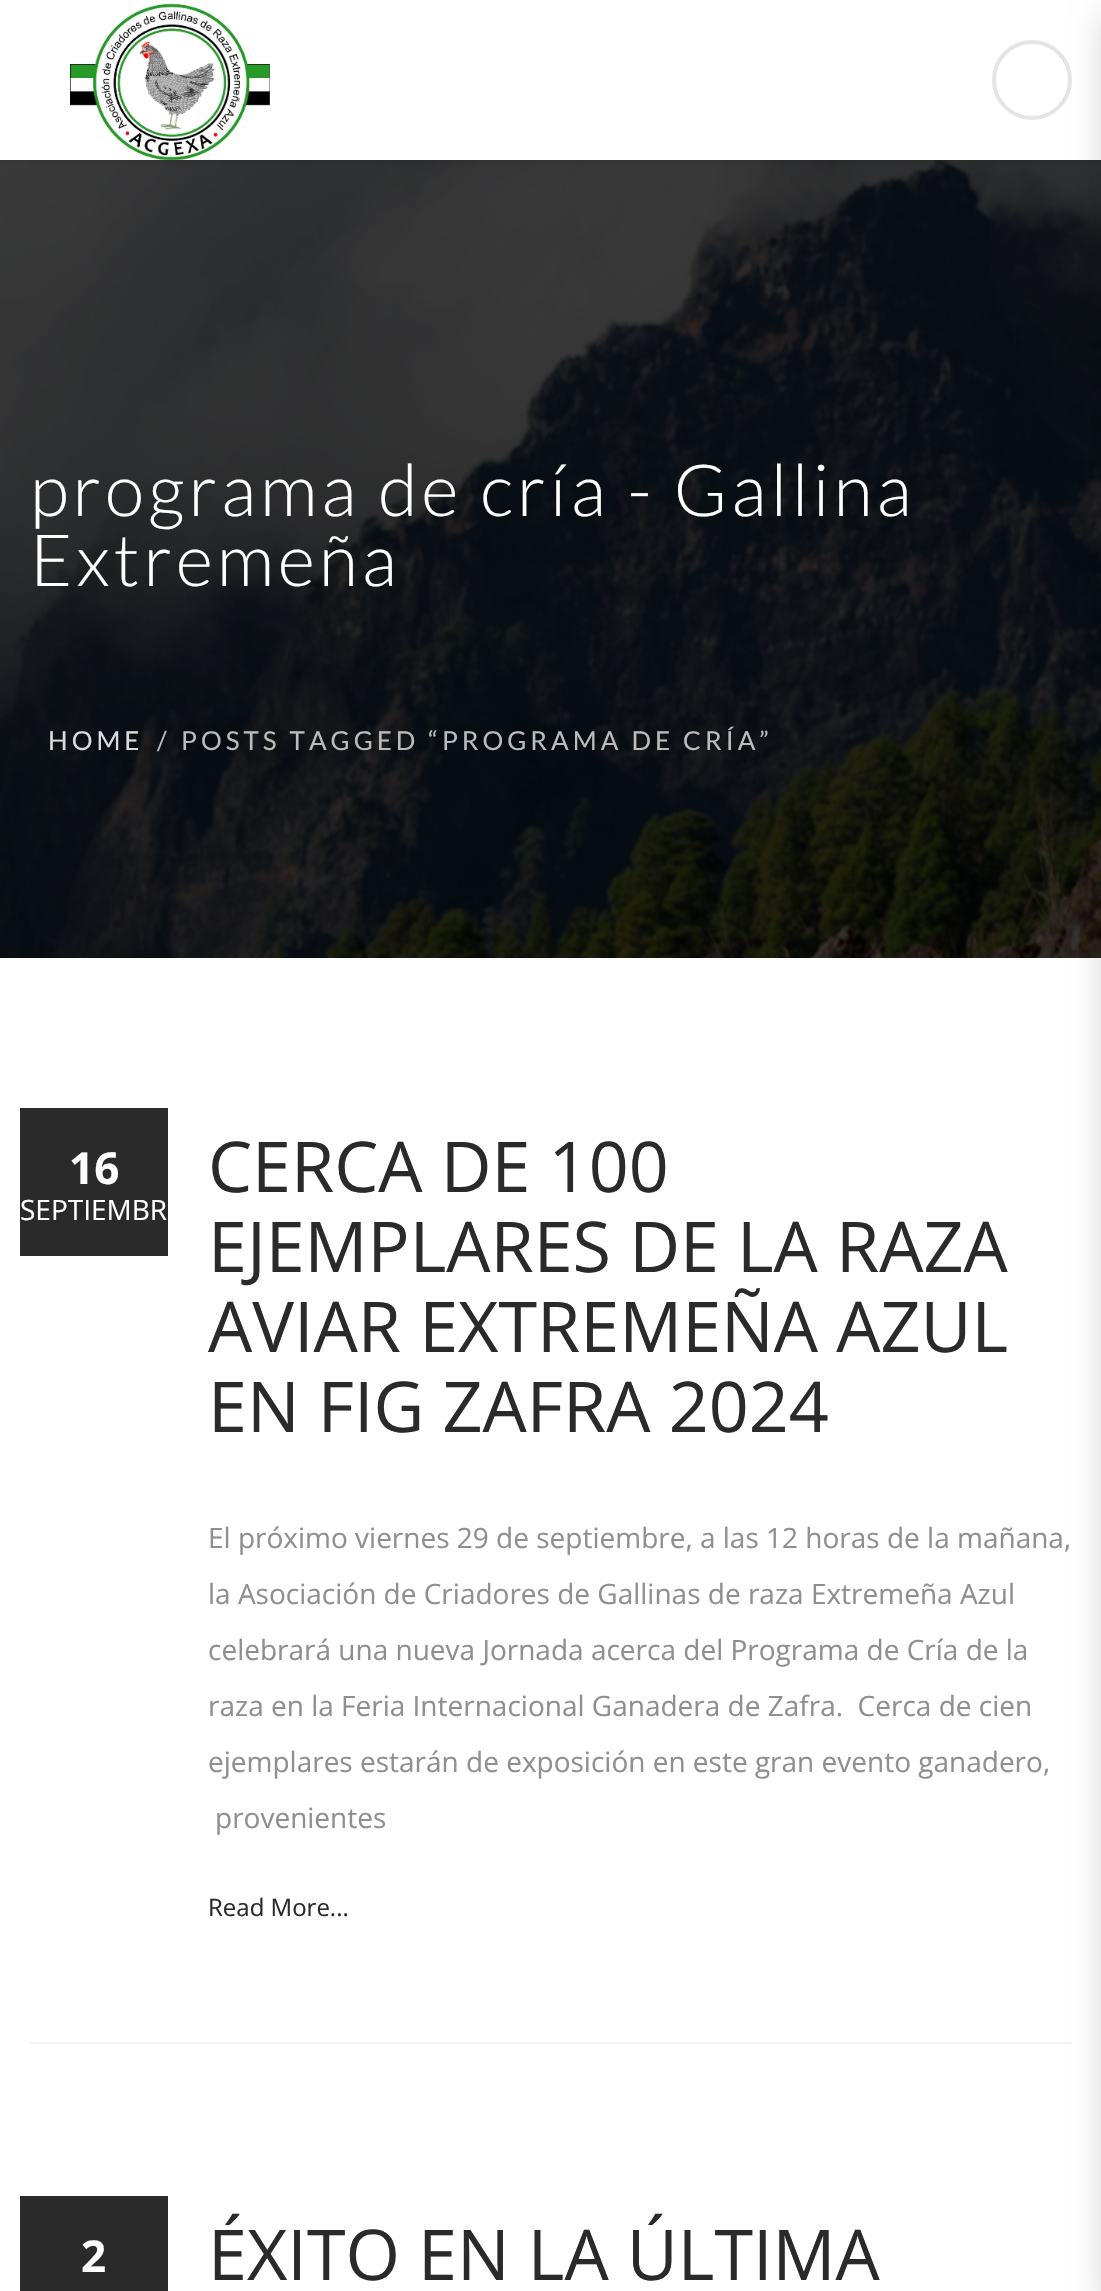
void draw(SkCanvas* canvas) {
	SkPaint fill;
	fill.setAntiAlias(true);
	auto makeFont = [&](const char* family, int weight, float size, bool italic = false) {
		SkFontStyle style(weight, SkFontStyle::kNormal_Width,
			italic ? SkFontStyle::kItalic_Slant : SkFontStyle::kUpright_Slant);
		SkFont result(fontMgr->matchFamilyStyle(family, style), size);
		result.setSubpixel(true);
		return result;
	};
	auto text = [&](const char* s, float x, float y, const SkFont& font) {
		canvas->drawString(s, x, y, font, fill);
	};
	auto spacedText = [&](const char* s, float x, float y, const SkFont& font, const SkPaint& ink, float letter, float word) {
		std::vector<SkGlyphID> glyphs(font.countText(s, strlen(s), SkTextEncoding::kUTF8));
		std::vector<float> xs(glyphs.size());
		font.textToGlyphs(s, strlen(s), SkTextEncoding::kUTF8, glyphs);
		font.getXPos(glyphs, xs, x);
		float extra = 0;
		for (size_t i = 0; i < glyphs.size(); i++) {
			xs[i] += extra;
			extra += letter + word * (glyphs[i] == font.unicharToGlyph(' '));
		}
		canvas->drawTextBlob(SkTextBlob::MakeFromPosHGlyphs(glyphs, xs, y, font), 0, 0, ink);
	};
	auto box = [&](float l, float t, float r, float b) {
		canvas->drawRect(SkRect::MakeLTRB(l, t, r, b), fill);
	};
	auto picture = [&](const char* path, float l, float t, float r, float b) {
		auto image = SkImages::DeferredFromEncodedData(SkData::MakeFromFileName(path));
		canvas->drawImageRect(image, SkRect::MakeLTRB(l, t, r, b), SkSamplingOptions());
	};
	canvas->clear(0xFFFFFFFF);
	picture("image1.png", 0, 160, 1101, 958);
	fill.setColor(0x1C000000);
	fill.setMaskFilter(SkMaskFilter::MakeBlur(kNormal_SkBlurStyle, 3));
	canvas->drawRect(SkRect::MakeLTRB(0, 2, 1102, 162), fill);
	fill.setMaskFilter(nullptr);
	fill.setColor(0xFFFFFFFF);
	box(0, 0, 1101, 160);
	picture("image0.png", 70, 3, 270, 160);
	fill.setStyle(SkPaint::kStroke_Style);
	fill.setStrokeWidth(4);
	fill.setColor(0xFFE5E5E5);
	canvas->drawCircle(1032, 80, 38, fill);
	fill.setStyle(SkPaint::kFill_Style);
	fill.setColor(0xFFF3F3F3);
	box(30, 2042, 1072, 2044);
	fill.setColor(0xFF2A2A2A);
	box(20, 1108, 168, 1256);
	box(20, 2196, 168, 2291);
	fill.setColor(0x26000000);
	fill.setMaskFilter(SkMaskFilter::MakeBlur(kNormal_SkBlurStyle, 16));
	canvas->drawRect(SkRect::MakeLTRB(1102, 16, 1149, 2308), fill);
	fill.setMaskFilter(nullptr);
	auto font1 = makeFont("Lato", 300, 72);
	fill.setColor(0xFFFFFFFF);
	spacedText("programa de cría - Gallina", 30, 516, font1, fill, 4, 0);
	spacedText("Extremeña", 30, 586, font1, fill, 4, 0);
	auto font2 = makeFont("Lato", 400, 26);
	fill.setColor(0xFFDBDBDB);
	spacedText("HOME", 48, 750, font2, fill, 4, 0);
	fill.setColor(0xFFBBBBBB);
	spacedText("/", 157, 750, font2, fill, 4, 0);
	spacedText("POSTS TAGGED “PROGRAMA DE CRÍA”", 181, 750, font2, fill, 4, 0);
	auto font3 = makeFont("Open Sans", 700, 44);
	fill.setColor(0xFFFFFFFF);
	text("16", 69, 1184, font3);
	auto font4 = makeFont("Open Sans", 400, 28);
	text("SEPTIEMBR", 20, 1220, font4);
	auto font5 = makeFont("Open Sans", 400, 70);
	fill.setColor(0xFF2A2A2A);
	text("CERCA DE 100", 208, 1192, font5);
	text("EJEMPLARES DE LA RAZA", 208, 1272, font5);
	text("AVIAR EXTREMEÑA AZUL", 208, 1352, font5);
	text("EN FIG ZAFRA 2024", 208, 1432, font5);
	fill.setColor(0xFF8F8F8F);
	text("El próximo viernes 29 de septiembre, a las 12 horas de la mañana,", 208, 1548, font4);
	text("la Asociación de Criadores de Gallinas de raza Extremeña Azul", 208, 1604, font4);
	text("celebrará una nueva Jornada acerca del Programa de Cría de la", 208, 1660, font4);
	text("raza en la Feria Internacional Ganadera de Zafra.  Cerca de cien", 208, 1716, font4);
	text("ejemplares estarán de exposición en este gran evento ganadero,", 208, 1772, font4);
	text("provenientes", 215, 1828, font4);
	auto font6 = makeFont("Open Sans", 400, 24);
	fill.setColor(0xFF2A2A2A);
	text("Read More...", 208, 1916, font6);
	fill.setColor(0xFFFFFFFF);
	text("2", 81, 2272, font3);
	fill.setColor(0xFF2A2A2A);
	text("ÉXITO EN LA ÚLTIMA", 208, 2280, font5);
}
